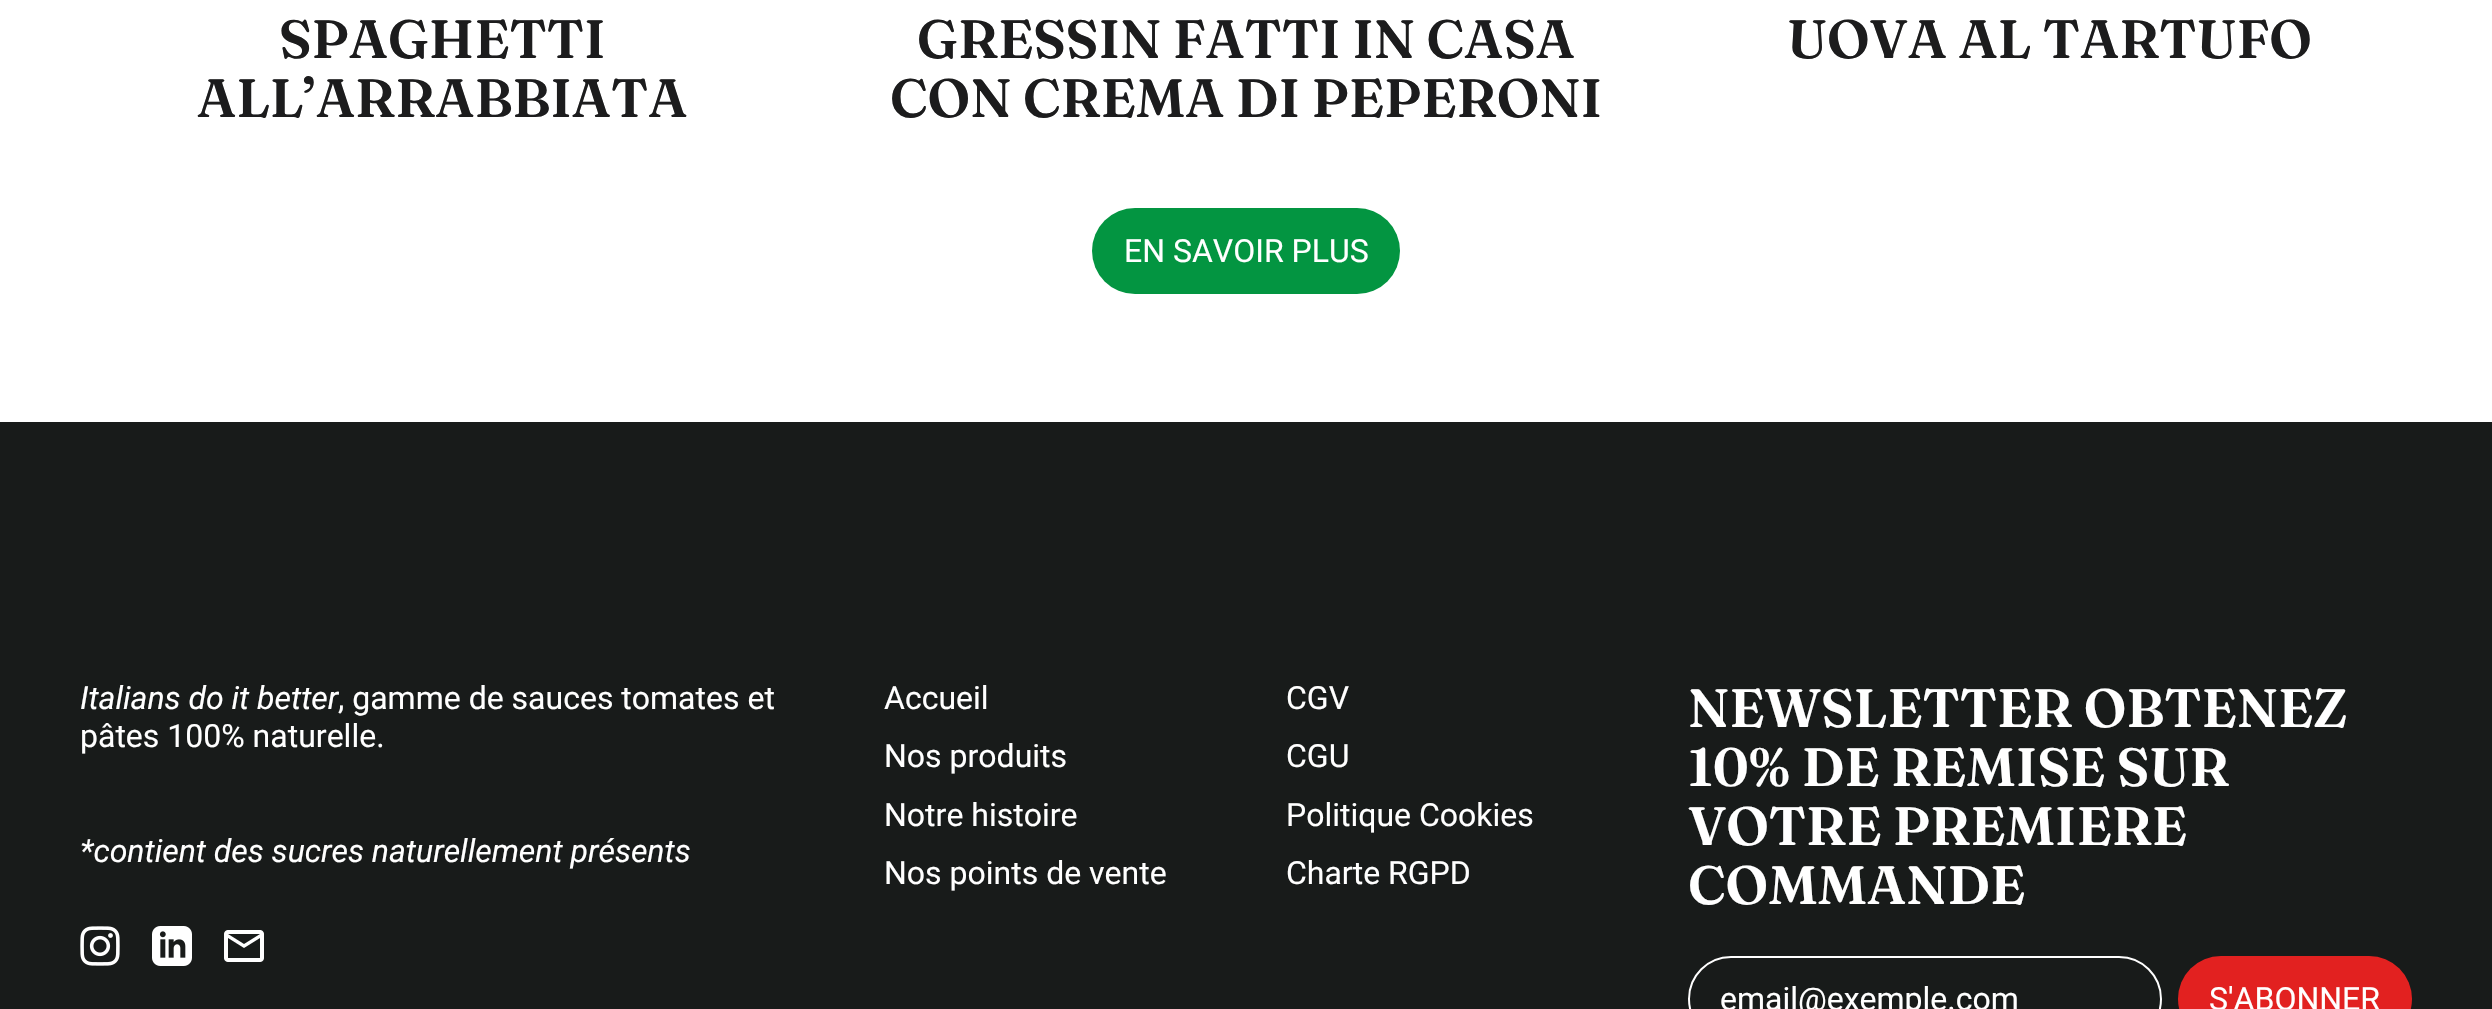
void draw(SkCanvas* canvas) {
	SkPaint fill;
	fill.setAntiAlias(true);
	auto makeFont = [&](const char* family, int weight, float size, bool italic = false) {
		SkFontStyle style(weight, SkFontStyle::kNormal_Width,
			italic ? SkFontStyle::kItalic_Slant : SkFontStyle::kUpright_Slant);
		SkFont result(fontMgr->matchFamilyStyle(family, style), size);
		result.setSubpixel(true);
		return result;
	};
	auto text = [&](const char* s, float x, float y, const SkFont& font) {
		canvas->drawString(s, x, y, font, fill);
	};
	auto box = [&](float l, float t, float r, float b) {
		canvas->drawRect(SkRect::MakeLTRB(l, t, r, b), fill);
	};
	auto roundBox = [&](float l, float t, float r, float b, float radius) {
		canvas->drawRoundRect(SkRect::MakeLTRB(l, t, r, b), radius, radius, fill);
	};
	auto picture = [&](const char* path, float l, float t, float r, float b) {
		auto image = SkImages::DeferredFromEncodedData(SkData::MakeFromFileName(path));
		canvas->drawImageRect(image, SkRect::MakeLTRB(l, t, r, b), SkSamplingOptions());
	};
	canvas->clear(0xFFFFFFFF);
	fill.setColor(0xFF039541);
	roundBox(1092, 208, 1400, 294, 43);
	fill.setColor(0xFF181B1A);
	box(0, 422, 2492, 1009);
	picture("image0.png", 80, 926, 120, 966);
	picture("image1.png", 152, 926, 192, 966);
	picture("image2.png", 224, 930, 264, 962);
	fill.setStyle(SkPaint::kStroke_Style);
	fill.setStrokeWidth(2);
	fill.setColor(0xFFFFFFFF);
	canvas->drawRoundRect(SkRect::MakeLTRB(1689, 957, 2161, 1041), 42, 42, fill);
	fill.setStyle(SkPaint::kFill_Style);
	fill.setColor(0xFFE22120);
	roundBox(2178, 956, 2412, 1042, 43);
	auto font1 = makeFont("Fraunces", 600, 53.75f);
	fill.setColor(0xFF1C1C1D);
	text("SPAGHETTI", 279, 58, font1);
	text("ALL’ARRABBIATA", 197, 117, font1);
	text("GRESSIN FATTI IN CASA", 917, 58, font1);
	text("CON CREMA DI PEPERONI", 890, 117, font1);
	text("UOVA AL TARTUFO", 1787, 58, font1);
	auto font2 = makeFont("Roboto", 400, 32);
	fill.setColor(0xFFFFFFFF);
	text("EN SAVOIR PLUS", 1124, 262, font2);
	auto font3 = makeFont("Roboto", 400, 32, true);
	text("Italians do it better", 80, 709, font3);
	text(", gamme de sauces tomates et", 338, 709, font2);
	text("pâtes 100% naturelle.", 80, 747, font2);
	text("*contient des sucres naturellement présents", 80, 862, font3);
	text("Accueil", 884, 709, font2);
	text("Nos produits", 884, 767, font2);
	text("Notre histoire", 884, 826, font2);
	text("Nos points de vente", 884, 884, font2);
	text("CGV", 1286, 709, font2);
	text("CGU", 1286, 767, font2);
	text("Politique Cookies", 1286, 826, font2);
	text("Charte RGPD", 1286, 884, font2);
	text("NEWSLETTER OBTENEZ", 1688, 727, font1);
	text("10% DE REMISE SUR", 1688, 786, font1);
	text("VOTRE PREMIERE", 1688, 845, font1);
	text("COMMANDE", 1688, 904, font1);
	text("email@exemple.com", 1720, 1010, font2);
	text("S'ABONNER", 2209, 1010, font2);
}
